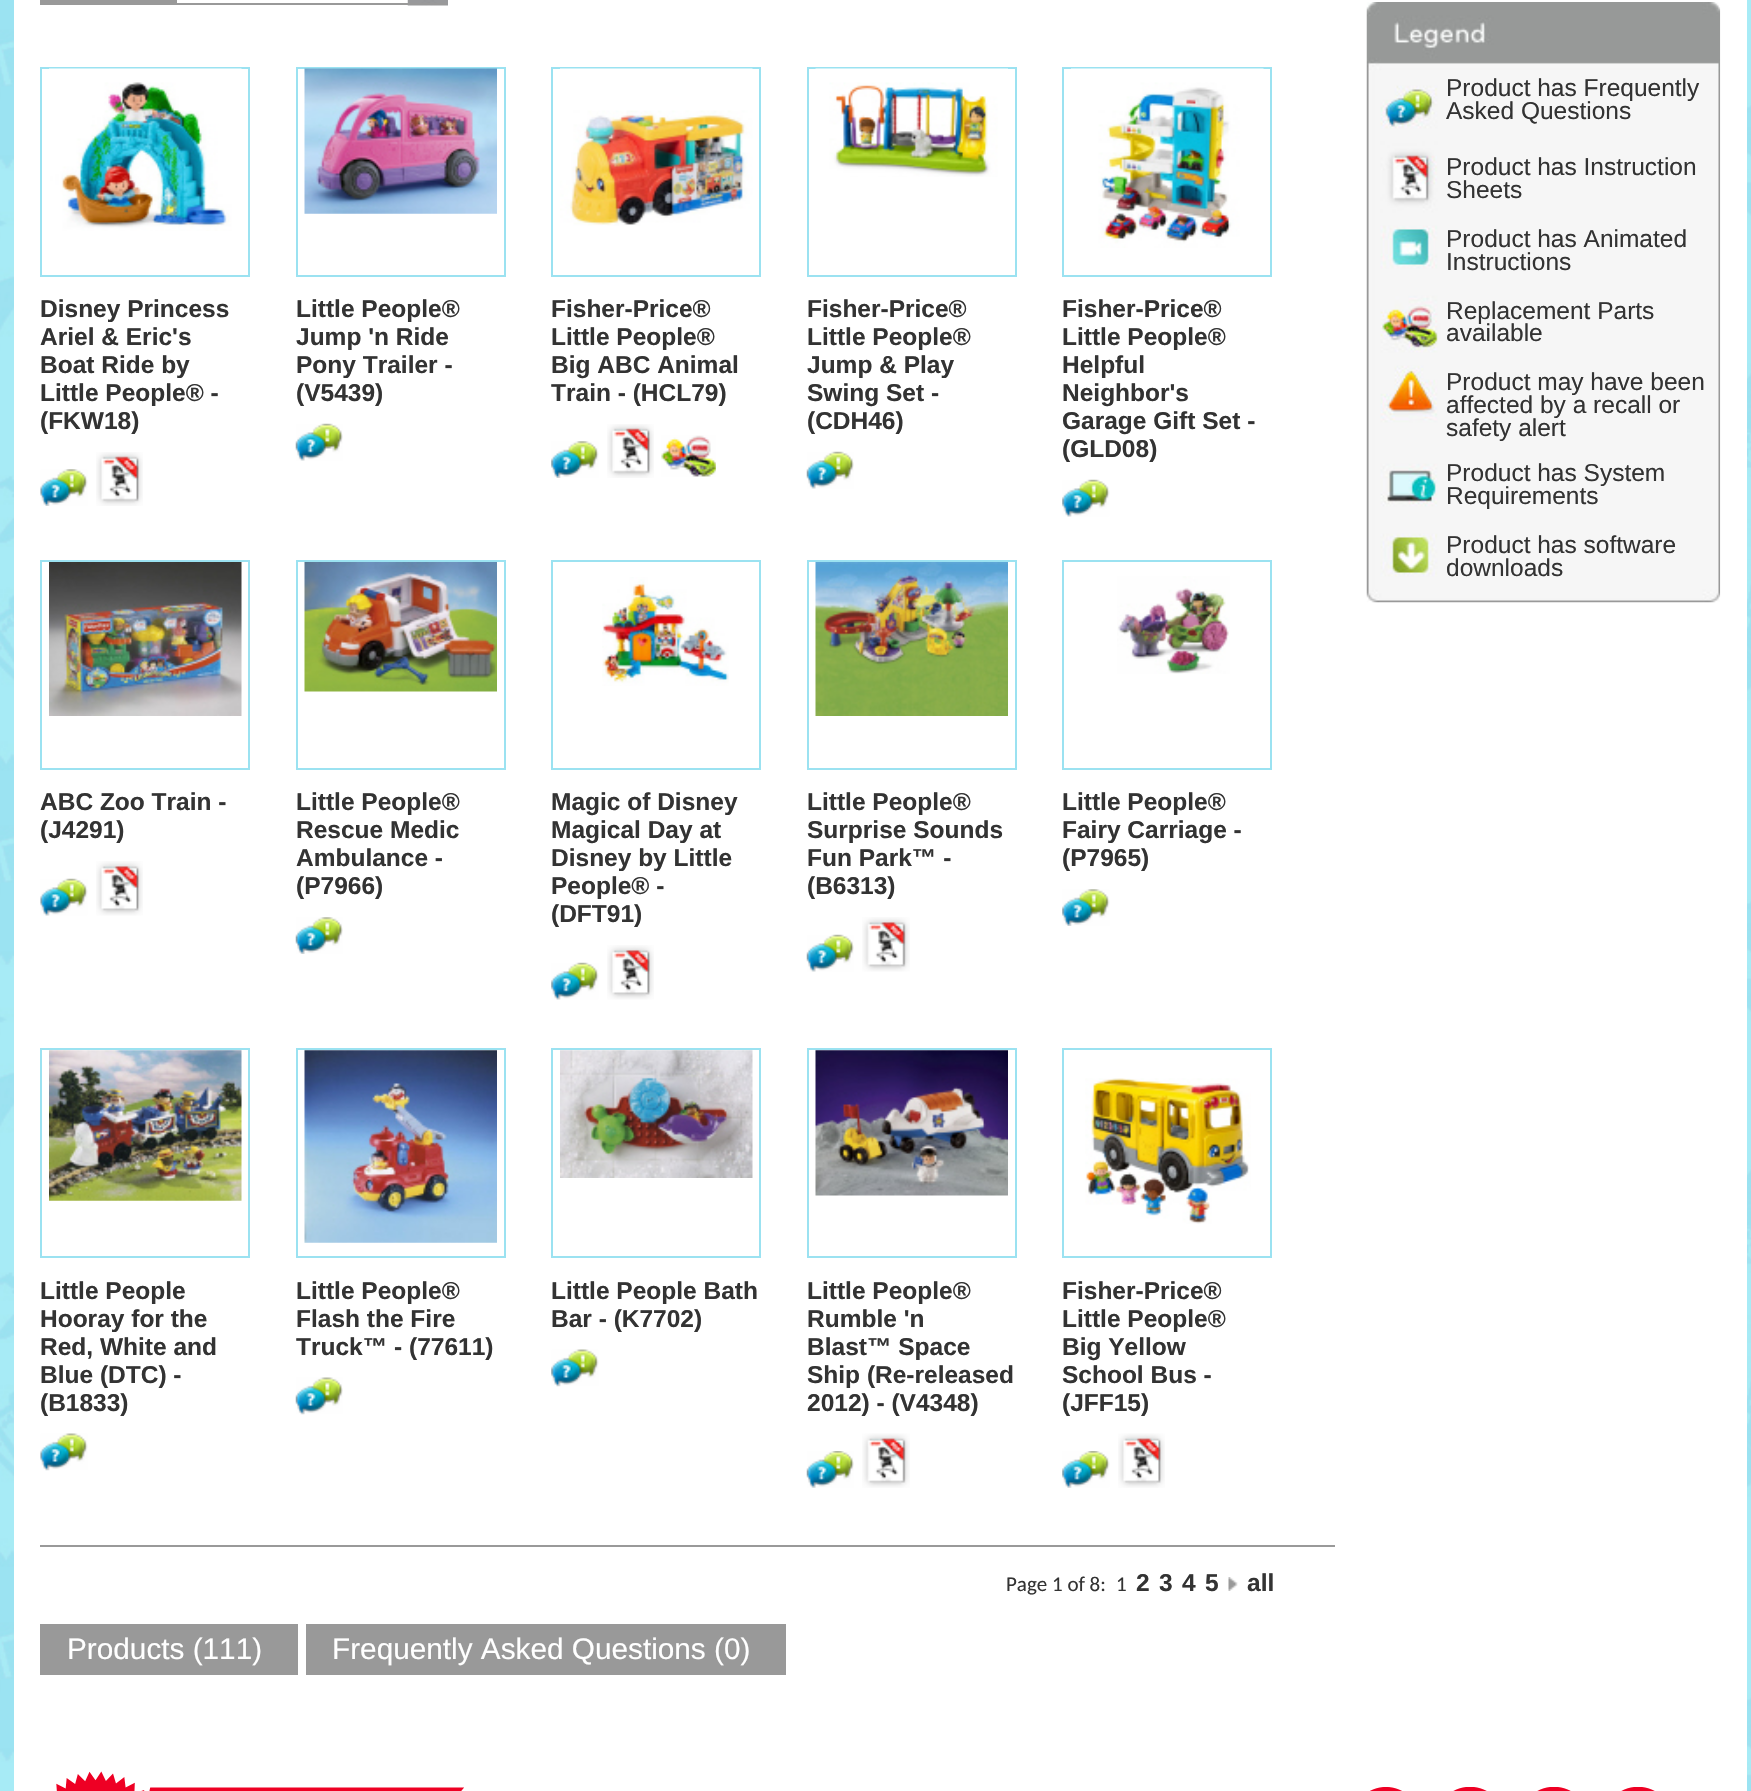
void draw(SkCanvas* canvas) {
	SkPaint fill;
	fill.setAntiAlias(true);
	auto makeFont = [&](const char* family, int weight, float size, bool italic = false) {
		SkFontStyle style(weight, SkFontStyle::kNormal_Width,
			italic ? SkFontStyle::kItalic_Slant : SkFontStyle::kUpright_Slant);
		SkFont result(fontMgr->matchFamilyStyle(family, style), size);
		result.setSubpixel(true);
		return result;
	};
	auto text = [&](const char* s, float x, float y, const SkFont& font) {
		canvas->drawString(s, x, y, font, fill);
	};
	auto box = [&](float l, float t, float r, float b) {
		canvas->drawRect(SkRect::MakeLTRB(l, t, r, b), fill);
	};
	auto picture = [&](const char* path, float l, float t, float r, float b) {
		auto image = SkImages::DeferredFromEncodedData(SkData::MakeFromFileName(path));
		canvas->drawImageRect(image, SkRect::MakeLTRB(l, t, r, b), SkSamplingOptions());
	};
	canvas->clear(0xFFFFFFFF);
	picture("image0.png", 0, 0, 1751, 1791);
	fill.setColor(0xFFFFFFFF);
	box(14, 0, 1747, 1791);
	picture("image1.png", 407, 0, 448, 6);
	fill.setColor(0xFF999999);
	box(40, 0, 175, 5);
	canvas->save();
	canvas->clipRect(SkRect::MakeLTRB(175, 0, 446, 5));
	fill.setStyle(SkPaint::kStroke_Style);
	fill.setStrokeWidth(2);
	canvas->drawRect(SkRect::MakeLTRB(176, -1, 480, 4), fill);
	canvas->restore();
	fill.setColor(0xFF9BE2F1);
	canvas->drawRect(SkRect::MakeLTRB(41, 68, 249, 276), fill);
	picture("image2.png", 49, 68, 242, 231);
	picture("image3.png", 40, 469, 88, 506);
	picture("image4.png", 96, 452, 143, 506);
	canvas->drawRect(SkRect::MakeLTRB(297, 68, 505, 276), fill);
	picture("image5.png", 304, 68, 497, 214);
	picture("image6.png", 295, 423, 343, 461);
	canvas->drawRect(SkRect::MakeLTRB(552, 68, 760, 276), fill);
	picture("image7.png", 560, 68, 753, 226);
	picture("image8.png", 551, 441, 599, 478);
	picture("image9.png", 607, 424, 654, 478);
	picture("image10.png", 661, 435, 716, 477);
	canvas->drawRect(SkRect::MakeLTRB(808, 68, 1016, 276), fill);
	picture("image11.png", 815, 68, 1008, 177);
	picture("image6.png", 806, 451, 854, 489);
	canvas->drawRect(SkRect::MakeLTRB(1063, 68, 1271, 276), fill);
	picture("image12.png", 1071, 68, 1264, 248);
	picture("image13.png", 1062, 479, 1110, 517);
	canvas->drawRect(SkRect::MakeLTRB(41, 561, 249, 769), fill);
	picture("image14.png", 49, 562, 242, 716);
	picture("image15.png", 40, 878, 88, 916);
	picture("image16.png", 96, 861, 143, 916);
	canvas->drawRect(SkRect::MakeLTRB(297, 561, 505, 769), fill);
	picture("image17.png", 304, 562, 497, 692);
	picture("image18.png", 295, 917, 343, 954);
	canvas->drawRect(SkRect::MakeLTRB(552, 561, 760, 769), fill);
	picture("image19.png", 602, 577, 729, 686);
	picture("image20.png", 551, 962, 599, 1000);
	picture("image21.png", 607, 945, 654, 1000);
	canvas->drawRect(SkRect::MakeLTRB(808, 561, 1016, 769), fill);
	picture("image22.png", 815, 562, 1008, 716);
	picture("image6.png", 806, 934, 854, 972);
	picture("image23.png", 862, 917, 910, 972);
	canvas->drawRect(SkRect::MakeLTRB(1063, 561, 1271, 769), fill);
	picture("image24.png", 1117, 576, 1230, 674);
	picture("image25.png", 1062, 889, 1110, 926);
	canvas->drawRect(SkRect::MakeLTRB(41, 1049, 249, 1257), fill);
	picture("image26.png", 49, 1050, 242, 1201);
	picture("image27.png", 40, 1433, 88, 1471);
	canvas->drawRect(SkRect::MakeLTRB(297, 1049, 505, 1257), fill);
	picture("image28.png", 304, 1050, 497, 1243);
	picture("image29.png", 295, 1377, 343, 1415);
	canvas->drawRect(SkRect::MakeLTRB(552, 1049, 760, 1257), fill);
	picture("image30.png", 560, 1050, 753, 1178);
	picture("image31.png", 551, 1349, 599, 1387);
	canvas->drawRect(SkRect::MakeLTRB(808, 1049, 1016, 1257), fill);
	picture("image32.png", 815, 1050, 1008, 1196);
	picture("image33.png", 806, 1451, 854, 1488);
	picture("image34.png", 862, 1433, 910, 1488);
	canvas->drawRect(SkRect::MakeLTRB(1063, 1049, 1271, 1257), fill);
	picture("image35.png", 1085, 1078, 1251, 1224);
	picture("image36.png", 1062, 1451, 1110, 1488);
	picture("image37.png", 1118, 1433, 1165, 1488);
	fill.setStyle(SkPaint::kFill_Style);
	fill.setColor(0xFF999999);
	box(40, 1545, 1335, 1547);
	picture("image38.png", 1228, 1577, 1238, 1591);
	picture("image39.png", 1366, 2, 1721, 603);
	box(40, 1624, 298, 1675);
	box(306, 1624, 786, 1675);
	picture("image40.png", 56, 1771, 464, 1791);
	picture("image41.png", 1370, 1787, 1402, 1791);
	picture("image42.png", 1453, 1787, 1487, 1791);
	picture("image43.png", 1537, 1787, 1571, 1791);
	picture("image43.png", 1621, 1787, 1655, 1791);
	auto font1 = makeFont("Liberation Sans", 700, 24.5f);
	fill.setColor(0xFF333333);
	text("Disney Princess", 40, 317, font1);
	text("Ariel & Eric's", 40, 345, font1);
	text("Boat Ride by", 40, 373, font1);
	text("Little People® -", 40, 401, font1);
	text("(FKW18)", 40, 429, font1);
	text("Little People®", 296, 317, font1);
	text("Jump 'n Ride", 296, 345, font1);
	text("Pony Trailer -", 296, 373, font1);
	text("(V5439)", 296, 401, font1);
	text("Fisher-Price®", 551, 317, font1);
	text("Little People®", 551, 345, font1);
	text("Big ABC Animal", 551, 373, font1);
	text("Train - (HCL79)", 551, 401, font1);
	text("Fisher-Price®", 807, 317, font1);
	text("Little People®", 807, 345, font1);
	text("Jump & Play", 807, 373, font1);
	text("Swing Set -", 807, 401, font1);
	text("(CDH46)", 807, 429, font1);
	text("Fisher-Price®", 1062, 317, font1);
	text("Little People®", 1062, 345, font1);
	text("Helpful", 1062, 373, font1);
	text("Neighbor's", 1062, 401, font1);
	text("Garage Gift Set -", 1062, 429, font1);
	text("(GLD08)", 1062, 457, font1);
	text("ABC Zoo Train -", 40, 810, font1);
	text("(J4291)", 40, 838, font1);
	text("Little People®", 296, 810, font1);
	text("Rescue Medic", 296, 838, font1);
	text("Ambulance -", 296, 866, font1);
	text("(P7966)", 296, 894, font1);
	text("Magic of Disney", 551, 810, font1);
	text("Magical Day at", 551, 838, font1);
	text("Disney by Little", 551, 866, font1);
	text("People® -", 551, 894, font1);
	text("(DFT91)", 551, 922, font1);
	text("Little People®", 807, 810, font1);
	text("Surprise Sounds", 807, 838, font1);
	text("Fun Park™ -", 807, 866, font1);
	text("(B6313)", 807, 894, font1);
	text("Little People®", 1062, 810, font1);
	text("Fairy Carriage -", 1062, 838, font1);
	text("(P7965)", 1062, 866, font1);
	text("Little People", 40, 1299, font1);
	text("Hooray for the", 40, 1327, font1);
	text("Red, White and", 40, 1355, font1);
	text("Blue (DTC) -", 40, 1383, font1);
	text("(B1833)", 40, 1411, font1);
	text("Little People®", 296, 1299, font1);
	text("Flash the Fire", 296, 1327, font1);
	text("Truck™ - (77611)", 296, 1355, font1);
	text("Little People Bath", 551, 1299, font1);
	text("Bar - (K7702)", 551, 1327, font1);
	text("Little People®", 807, 1299, font1);
	text("Rumble 'n", 807, 1327, font1);
	text("Blast™ Space", 807, 1355, font1);
	text("Ship (Re-released", 807, 1383, font1);
	text("2012) - (V4348)", 807, 1411, font1);
	text("Fisher-Price®", 1062, 1299, font1);
	text("Little People®", 1062, 1327, font1);
	text("Big Yellow", 1062, 1355, font1);
	text("School Bus -", 1062, 1383, font1);
	text("(JFF15)", 1062, 1411, font1);
	auto font2 = makeFont("Carlito", 400, 21);
	text("Page 1 of 8:", 1006, 1591, font2);
	text("1", 1116, 1591, font2);
	text("2", 1136, 1591, font1);
	text("3", 1159, 1591, font1);
	text("4", 1182, 1591, font1);
	text("5", 1205, 1591, font1);
	text("all", 1247, 1591, font1);
	auto font3 = makeFont("Liberation Sans", 400, 24.5f);
	text("Product has Frequently", 1446, 96, font3);
	text("Asked Questions", 1446, 119, font3);
	text("Product has Instruction", 1446, 175, font3);
	text("Sheets", 1446, 198, font3);
	text("Product has Animated", 1446, 247, font3);
	text("Instructions", 1446, 270, font3);
	text("Replacement Parts", 1446, 319, font3);
	text("available", 1446, 341, font3);
	text("Product may have been", 1446, 390, font3);
	text("affected by a recall or", 1446, 413, font3);
	text("safety alert", 1446, 436, font3);
	text("Product has System", 1446, 481, font3);
	text("Requirements", 1446, 504, font3);
	text("Product has software", 1446, 553, font3);
	text("downloads", 1446, 576, font3);
	auto font4 = makeFont("Liberation Sans", 400, 29.75f);
	fill.setColor(0xFFFFFFFF);
	text("Products (111)", 67, 1659, font4);
	text("Frequently Asked Questions (0)", 332, 1659, font4);
}
